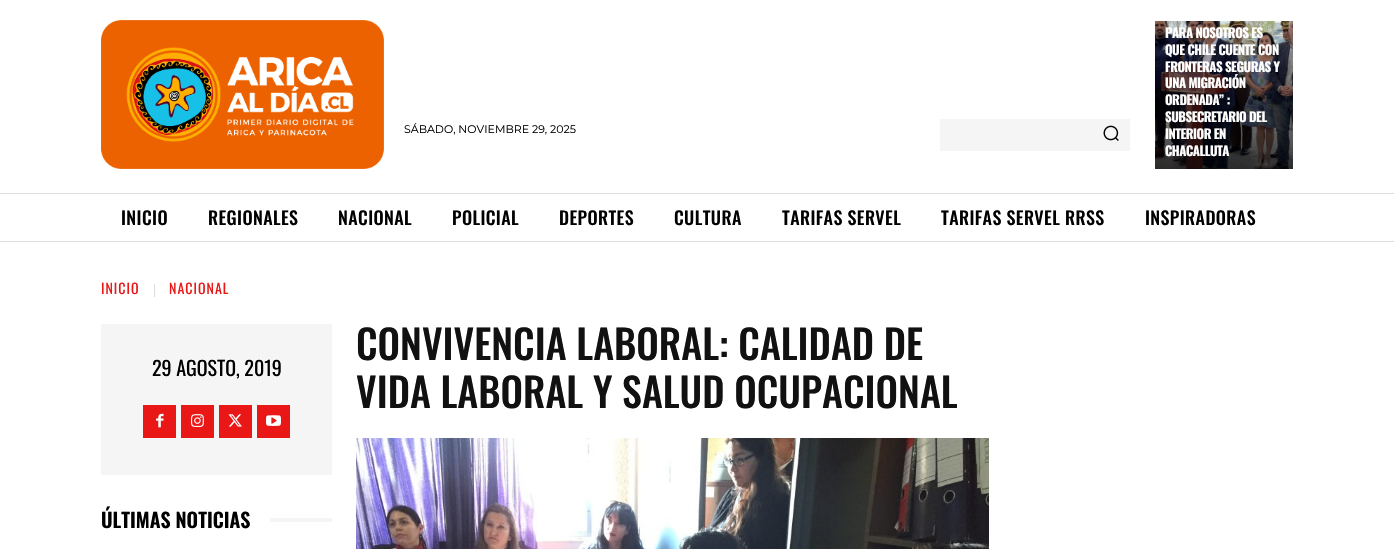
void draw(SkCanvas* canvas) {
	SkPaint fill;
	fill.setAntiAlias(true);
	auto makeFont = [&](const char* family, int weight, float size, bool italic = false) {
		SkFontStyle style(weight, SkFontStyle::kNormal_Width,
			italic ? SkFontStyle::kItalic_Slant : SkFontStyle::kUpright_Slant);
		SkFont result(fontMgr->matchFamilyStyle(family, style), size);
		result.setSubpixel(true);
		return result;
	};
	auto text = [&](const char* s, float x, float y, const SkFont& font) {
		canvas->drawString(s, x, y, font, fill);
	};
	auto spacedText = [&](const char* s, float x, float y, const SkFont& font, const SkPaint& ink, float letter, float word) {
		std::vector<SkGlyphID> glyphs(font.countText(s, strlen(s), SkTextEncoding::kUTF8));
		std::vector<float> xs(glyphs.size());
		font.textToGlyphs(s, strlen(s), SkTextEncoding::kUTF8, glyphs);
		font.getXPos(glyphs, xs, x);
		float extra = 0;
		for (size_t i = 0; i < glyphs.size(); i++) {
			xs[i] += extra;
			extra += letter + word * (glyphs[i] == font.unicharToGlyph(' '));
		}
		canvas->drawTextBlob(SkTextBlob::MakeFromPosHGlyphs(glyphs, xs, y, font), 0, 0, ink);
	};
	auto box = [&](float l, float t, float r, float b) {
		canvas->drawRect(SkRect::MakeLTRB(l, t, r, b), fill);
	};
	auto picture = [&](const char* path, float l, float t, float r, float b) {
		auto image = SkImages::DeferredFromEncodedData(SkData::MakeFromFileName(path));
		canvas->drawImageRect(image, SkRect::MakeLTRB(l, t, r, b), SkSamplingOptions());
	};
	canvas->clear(0xFFFFFFFF);
	picture("image0.png", 101, 20, 384, 169);
	fill.setColor(0xFFF5F5F5);
	box(940, 119, 1130, 151);
	picture("image1.png", 1103, 125, 1119, 141);
	picture("image2.png", 1155, 21, 1293, 169);
	fill.setColor(0xFFDDDDDD);
	box(0, 193, 1394, 194);
	box(0, 241, 1394, 242);
	box(154, 284, 155, 297);
	fill.setColor(0xFFF5F5F5);
	box(101, 324, 332, 475);
	fill.setColor(0xFFEA1717);
	box(143, 405, 176, 438);
	picture("image3.png", 156, 413, 164, 428);
	box(181, 405, 214, 438);
	picture("image4.png", 191, 414, 204, 427);
	box(219, 405, 252, 438);
	picture("image5.png", 228, 414, 242, 427);
	box(257, 405, 290, 438);
	picture("image6.png", 266, 415, 281, 426);
	fill.setColor(0xFFF5F5F5);
	box(270, 518, 332, 522);
	picture("image7.png", 356, 438, 989, 549);
	auto font1 = makeFont("Montserrat", 400, 11);
	fill.setColor(0xFF000000);
	text("SÁBADO, NOVIEMBRE 29, 2025", 404, 133, font1);
	auto font2 = makeFont("Oswald", 700, 13);
	fill.setColor(0xFFFFFFFF);
	spacedText("PARA NOSOTROS ES", 1165, 38, font2, fill, -0.5f, 0);
	spacedText("QUE CHILE CUENTE CON", 1165, 55, font2, fill, -0.5f, 0);
	spacedText("FRONTERAS SEGURAS Y", 1165, 72, font2, fill, -0.5f, 0);
	spacedText("UNA MIGRACIÓN", 1165, 88, font2, fill, -0.5f, 0);
	spacedText("ORDENADA” :", 1165, 105, font2, fill, -0.5f, 0);
	spacedText("SUBSECRETARIO DEL", 1165, 122, font2, fill, -0.5f, 0);
	spacedText("INTERIOR EN", 1165, 139, font2, fill, -0.5f, 0);
	spacedText("CHACALLUTA", 1165, 156, font2, fill, -0.5f, 0);
	auto font3 = makeFont("Oswald", 500, 18);
	fill.setColor(0xFF000000);
	spacedText("INICIO", 121, 225, font3, fill, 0.4f, 0);
	spacedText("REGIONALES", 208, 225, font3, fill, 0.4f, 0);
	spacedText("NACIONAL", 338, 225, font3, fill, 0.4f, 0);
	spacedText("POLICIAL", 452, 225, font3, fill, 0.4f, 0);
	spacedText("DEPORTES", 559, 225, font3, fill, 0.4f, 0);
	spacedText("CULTURA", 674, 225, font3, fill, 0.4f, 0);
	spacedText("TARIFAS SERVEL", 782, 225, font3, fill, 0.4f, 0);
	spacedText("TARIFAS SERVEL RRSS", 941, 225, font3, fill, 0.4f, 0);
	spacedText("INSPIRADORAS", 1145, 225, font3, fill, 0.4f, 0);
	auto font4 = makeFont("Oswald", 400, 14);
	fill.setColor(0xFFEA1717);
	spacedText("INICIO", 101, 294, font4, fill, 1, 0);
	spacedText("NACIONAL", 169, 294, font4, fill, 1, 0);
	auto font5 = makeFont("Oswald", 400, 20);
	fill.setColor(0xFF000000);
	text("29 AGOSTO, 2019", 152, 376, font5);
	auto font6 = makeFont("Oswald", 600, 20);
	text("ÚLTIMAS NOTICIAS", 101, 528, font6);
	auto font7 = makeFont("Oswald", 500, 40);
	fill.setColor(0xFF111111);
	text("CONVIVENCIA LABORAL: CALIDAD DE", 356, 360, font7);
	text("VIDA LABORAL Y SALUD OCUPACIONAL", 356, 408, font7);
}
